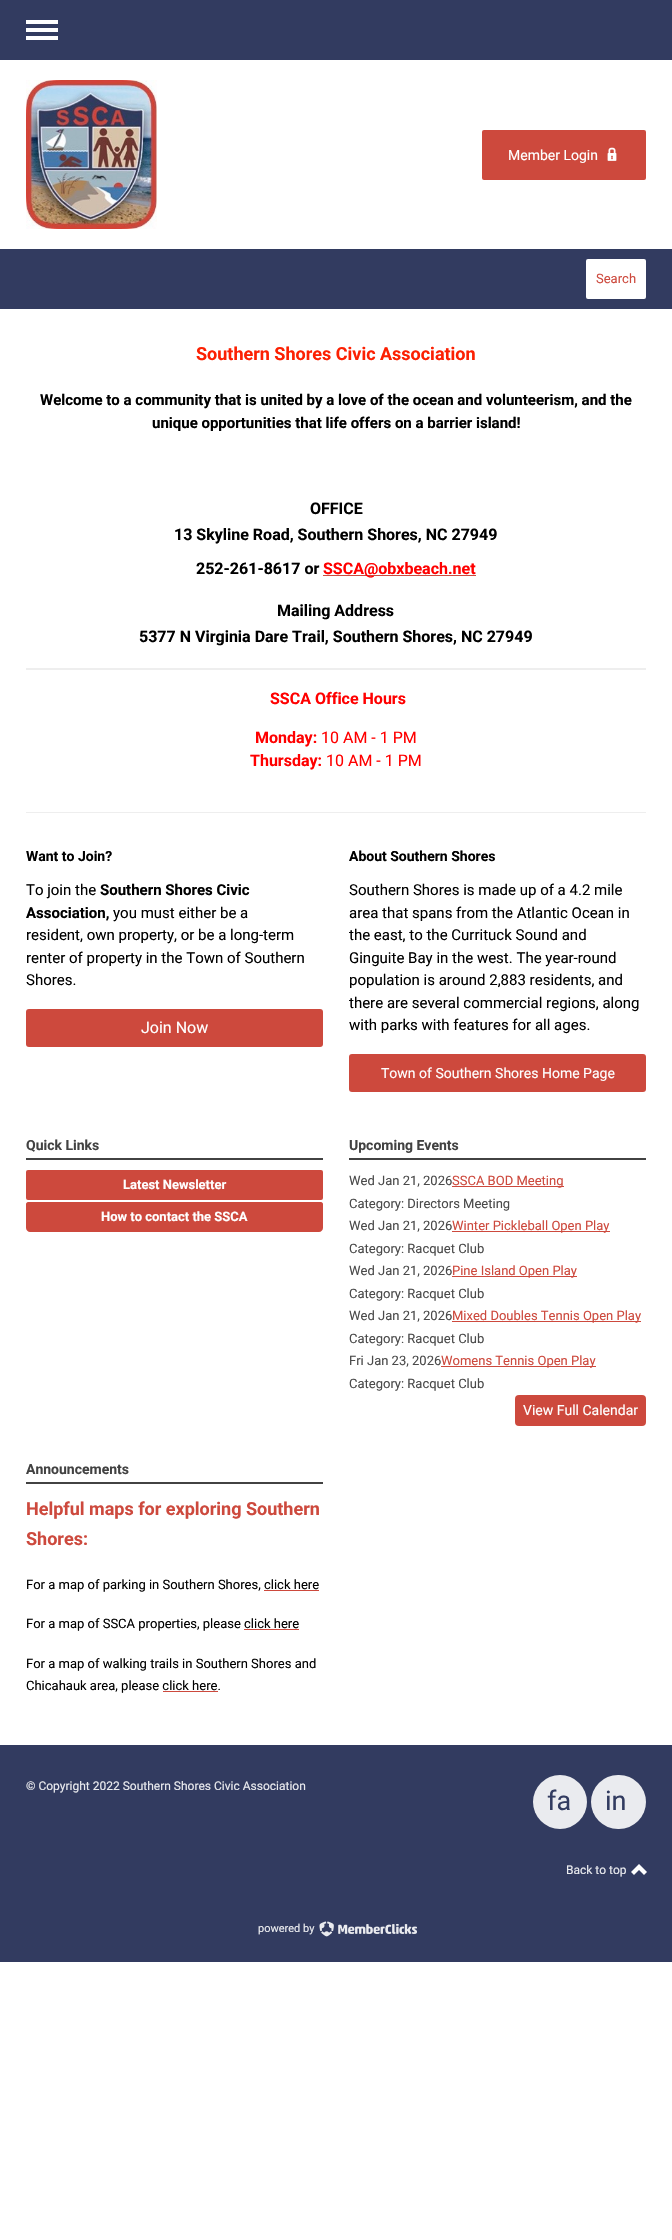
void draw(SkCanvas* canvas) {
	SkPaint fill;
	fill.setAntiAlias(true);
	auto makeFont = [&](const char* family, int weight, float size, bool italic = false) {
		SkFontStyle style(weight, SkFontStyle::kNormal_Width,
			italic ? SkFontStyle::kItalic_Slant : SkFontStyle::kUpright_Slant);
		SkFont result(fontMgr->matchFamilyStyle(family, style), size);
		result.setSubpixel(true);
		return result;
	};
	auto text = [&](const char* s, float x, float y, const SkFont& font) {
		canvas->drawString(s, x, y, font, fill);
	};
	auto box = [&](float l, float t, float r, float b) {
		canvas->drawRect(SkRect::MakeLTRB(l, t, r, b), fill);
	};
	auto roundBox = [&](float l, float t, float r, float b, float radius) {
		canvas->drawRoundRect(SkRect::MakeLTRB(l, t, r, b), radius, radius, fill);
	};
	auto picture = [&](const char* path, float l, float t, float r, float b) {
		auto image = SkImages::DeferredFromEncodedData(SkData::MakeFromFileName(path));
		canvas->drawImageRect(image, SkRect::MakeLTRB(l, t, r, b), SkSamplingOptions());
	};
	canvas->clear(0xFFFFFFFF);
	fill.setColor(0xFF323B60);
	box(0, 0, 672, 60);
	picture("image0.png", 26, 20, 58, 40);
	picture("image1.png", 26, 80, 157, 229);
	fill.setColor(0xFFCD493D);
	roundBox(482, 130, 646, 180, 2);
	picture("image2.png", 607, 147, 617, 161);
	fill.setColor(0xFF323B60);
	box(0, 249, 672, 309);
	fill.setColor(0xFFFFFFFF);
	roundBox(586, 259, 646, 299, 2);
	fill.setColor(0xFFEEEEEE);
	box(26, 812, 646, 813);
	fill.setColor(0xFFCD493D);
	box(323, 575, 476, 576);
	fill.setColor(0xFFEEEEEE);
	box(26, 668, 646, 670);
	fill.setColor(0xFFCD493D);
	roundBox(26, 1009, 323, 1047, 3);
	roundBox(349, 1054, 646, 1092, 3);
	fill.setColor(0xFF424242);
	box(26, 1158, 323, 1160);
	fill.setColor(0xFFCD493D);
	roundBox(26, 1170, 323, 1200, 2);
	canvas->drawPath(SkPathBuilder().moveTo(28, 1202).lineTo(321, 1202).cubicTo(322, 1202, 323, 1203, 323, 1204).lineTo(323, 1228).cubicTo(323, 1230, 321, 1232, 319, 1232).lineTo(30, 1232).cubicTo(28, 1232, 26, 1230, 26, 1228).lineTo(26, 1204).cubicTo(26, 1203, 27, 1202, 28, 1202).close().detach(), fill);
	fill.setColor(0xFF424242);
	box(349, 1158, 646, 1160);
	fill.setColor(0xFFCD493D);
	box(452, 1186, 564, 1187);
	box(452, 1231, 610, 1232);
	box(452, 1276, 577, 1277);
	box(452, 1321, 641, 1322);
	box(441, 1366, 596, 1367);
	roundBox(515, 1395, 646, 1426, 4);
	fill.setColor(0xFF424242);
	box(26, 1482, 323, 1484);
	fill.setColor(0xFF323B60);
	box(0, 1745, 672, 1962);
	fill.setColor(0xFFEAEBEF);
	canvas->drawCircle(560, 1802, 27, fill);
	roundBox(591, 1775, 646, 1829, 27);
	picture("image3.png", 631, 1864, 647, 1875);
	picture("image4.png", 319, 1921, 334, 1937);
	picture("image5.png", 338, 1923, 417, 1934);
	auto font1 = makeFont("Roboto", 400, 14);
	fill.setColor(0xFFFFFFFF);
	text("Member Login", 508, 160, font1);
	auto font2 = makeFont("Roboto", 400, 13);
	fill.setColor(0xFFCD493D);
	text("Search", 596, 283, font2);
	auto font3 = makeFont("Roboto", 700, 18);
	fill.setColor(0xFFFC2002);
	text("Southern Shores Civic Association", 196, 360, font3);
	auto font4 = makeFont("Roboto", 700, 15);
	fill.setColor(0xFF000000);
	text("Welcome to a community that is united by a love of the ocean and volunteerism, and the", 40, 405, font4);
	text("unique opportunities that life offers on a barrier island!", 152, 428, font4);
	auto font5 = makeFont("Roboto", 700, 16);
	text("OFFICE", 310, 514, font5);
	text("13 Skyline Road, Southern Shores, NC 27949", 174, 540, font5);
	text("252-261-8617 or", 196, 574, font5);
	fill.setColor(0xFFFF0000);
	text("SSCA@obxbeach.net", 323, 574, font5);
	fill.setColor(0xFF000000);
	text("Mailing Address", 277, 616, font5);
	text("5377 N Virginia Dare Trail, Southern Shores, NC 27949", 139, 642, font5);
	fill.setColor(0xFFFF0000);
	text("SSCA Office Hours", 270, 704, font5);
	text("Monday:", 255, 743, font5);
	auto font6 = makeFont("Roboto", 400, 16);
	text("10 AM - 1 PM", 321, 743, font6);
	text("Thursday:", 250, 766, font5);
	text("10 AM - 1 PM", 326, 766, font6);
	auto font7 = makeFont("Roboto", 700, 14);
	fill.setColor(0xFF000000);
	text("Want to Join?", 26, 861, font7);
	auto font8 = makeFont("Roboto", 400, 15);
	text("To join the", 26, 895, font8);
	text("Southern Shores Civic", 100, 895, font4);
	text("Association,", 26, 918, font4);
	text("you must either be a", 113, 918, font8);
	text("resident, own property, or be a long-term", 26, 940, font8);
	text("renter of property in the Town of Southern", 26, 963, font8);
	text("Shores.", 26, 985, font8);
	fill.setColor(0xFFFFFFFF);
	text("Join Now", 141, 1033, font6);
	fill.setColor(0xFF000000);
	text("About Southern Shores", 349, 861, font7);
	text("Southern Shores is made up of a 4.2 mile", 349, 895, font8);
	text("area that spans from the Atlantic Ocean in", 349, 918, font8);
	text("the east, to the Currituck Sound and", 349, 940, font8);
	text("Ginguite Bay in the west. The year-round", 349, 963, font8);
	text("population is around 2,883 residents, and", 349, 985, font8);
	text("there are several commercial regions, along", 349, 1008, font8);
	text("with parks with features for all ages.", 349, 1030, font8);
	fill.setColor(0xFFFFFFFF);
	text("Town of Southern Shores Home Page", 381, 1078, font1);
	fill.setColor(0xFF424242);
	text("Quick Links", 26, 1150, font7);
	auto font9 = makeFont("Roboto", 700, 13);
	fill.setColor(0xFFFFFFFF);
	text("Latest Newsletter", 123, 1189, font9);
	text("How to contact the SSCA", 101, 1221, font9);
	fill.setColor(0xFF424242);
	text("Upcoming Events", 349, 1150, font7);
	fill.setColor(0xFF4A4A4A);
	text("Wed Jan 21, 2026", 349, 1185, font2);
	fill.setColor(0xFFCD493D);
	text("SSCA BOD Meeting", 452, 1185, font2);
	fill.setColor(0xFF4A4A4A);
	text("Category: Directors Meeting", 349, 1208, font2);
	text("Wed Jan 21, 2026", 349, 1230, font2);
	fill.setColor(0xFFCD493D);
	text("Winter Pickleball Open Play", 452, 1230, font2);
	fill.setColor(0xFF4A4A4A);
	text("Category: Racquet Club", 349, 1253, font2);
	text("Wed Jan 21, 2026", 349, 1275, font2);
	fill.setColor(0xFFCD493D);
	text("Pine Island Open Play", 452, 1275, font2);
	fill.setColor(0xFF4A4A4A);
	text("Category: Racquet Club", 349, 1298, font2);
	text("Wed Jan 21, 2026", 349, 1320, font2);
	fill.setColor(0xFFCD493D);
	text("Mixed Doubles Tennis Open Play", 452, 1320, font2);
	fill.setColor(0xFF4A4A4A);
	text("Category: Racquet Club", 349, 1343, font2);
	text("Fri Jan 23, 2026", 349, 1365, font2);
	fill.setColor(0xFFCD493D);
	text("Womens Tennis Open Play", 441, 1365, font2);
	fill.setColor(0xFF4A4A4A);
	text("Category: Racquet Club", 349, 1388, font2);
	fill.setColor(0xFFFFFFFF);
	text("View Full Calendar", 523, 1415, font1);
	fill.setColor(0xFF424242);
	text("Announcements", 26, 1474, font7);
	fill.setColor(0xFFCD493D);
	text("Helpful maps for exploring Southern", 26, 1515, font3);
	text("Shores:", 26, 1545, font3);
	fill.setColor(0xFF000000);
	text("For a map of parking in Southern Shores, click here", 26, 1589, font2);
	fill.setColor(0xFFCD493D);
	box(264, 1590, 319, 1591);
	fill.setColor(0xFF000000);
	text("For a map of SSCA properties, please click here", 26, 1628, font2);
	fill.setColor(0xFFCD493D);
	box(244, 1629, 299, 1630);
	fill.setColor(0xFF000000);
	text("For a map of walking trails in Southern Shores and", 26, 1668, font2);
	text("Chicahauk area, please click here.", 26, 1690, font2);
	fill.setColor(0xFFCD493D);
	box(163, 1691, 218, 1692);
	auto font10 = makeFont("Roboto", 400, 12);
	fill.setColor(0xFFEAEBEF);
	text("© Copyright 2022 Southern Shores Civic Association", 26, 1790, font10);
	auto font11 = makeFont("Roboto", 400, 27);
	fill.setColor(0xFF323B60);
	text("fa", 547, 1810, font11);
	text("in", 605, 1810, font11);
	fill.setColor(0xFFEAEBEF);
	text("Back to top", 566, 1874, font10);
	auto font12 = makeFont("Roboto", 400, 11);
	text("powered by", 258, 1932, font12);
}
